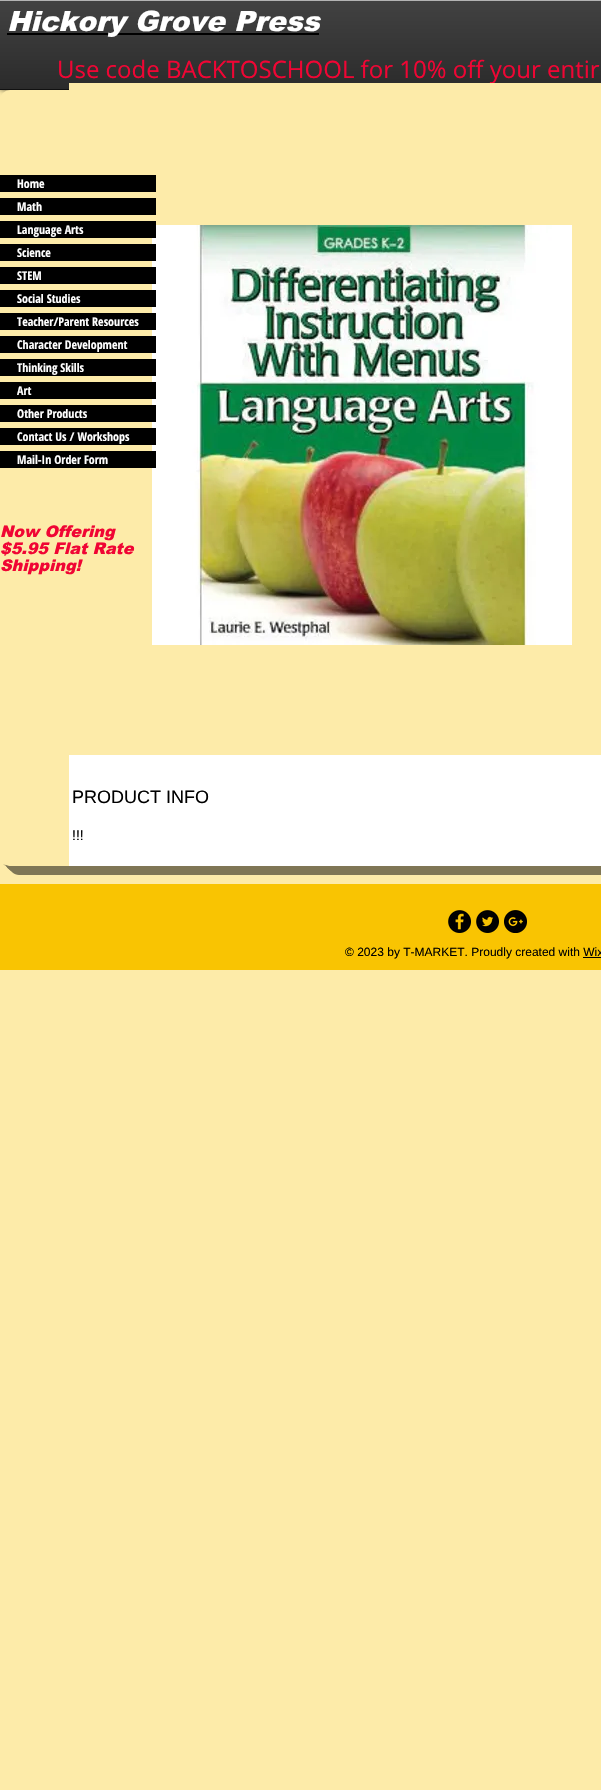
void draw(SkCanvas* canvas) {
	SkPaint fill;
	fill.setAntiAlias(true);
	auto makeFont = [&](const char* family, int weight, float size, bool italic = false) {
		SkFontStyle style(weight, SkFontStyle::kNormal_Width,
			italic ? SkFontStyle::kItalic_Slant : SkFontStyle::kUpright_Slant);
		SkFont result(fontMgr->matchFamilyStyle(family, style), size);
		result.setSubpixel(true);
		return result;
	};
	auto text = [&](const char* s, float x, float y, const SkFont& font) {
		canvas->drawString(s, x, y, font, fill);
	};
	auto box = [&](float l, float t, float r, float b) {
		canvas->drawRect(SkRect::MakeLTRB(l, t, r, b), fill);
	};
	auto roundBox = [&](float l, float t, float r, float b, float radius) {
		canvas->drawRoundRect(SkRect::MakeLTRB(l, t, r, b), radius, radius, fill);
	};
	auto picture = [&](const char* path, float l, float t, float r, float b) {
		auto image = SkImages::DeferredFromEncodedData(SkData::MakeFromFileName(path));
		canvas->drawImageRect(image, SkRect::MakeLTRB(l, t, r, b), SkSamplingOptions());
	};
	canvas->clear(0xFFFDEBA9);
	fill.setColor(0x99000000);
	fill.setMaskFilter(SkMaskFilter::MakeBlur(kNormal_SkBlurStyle, 2.5f));
	canvas->drawRect(SkRect::MakeLTRB(0, 0, 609, 90), fill);
	fill.setMaskFilter(nullptr);
	fill.setColor(0xFF000000);
	box(0, 1, 601, 89);
	picture("image0.png", 0, 1, 601, 89);
	fill.setColor(0xFF111111);
	box(0, 89, 69, 90);
	fill.setColor(0xFFB3B3B3);
	box(0, 0, 601, 1);
	fill.setColor(0xFF000000);
	box(7, 33, 319, 35);
	fill.setColor(0xFF7F7655);
	canvas->drawPath(SkPathBuilder().moveTo(9, 866).cubicTo(10, 871, 14, 875, 19, 875).lineTo(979, 875).cubicTo(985, 875, 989, 871, 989, 865).lineTo(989, 109).cubicTo(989, 104, 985, 100, 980, 99).lineTo(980, 856).cubicTo(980, 861, 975, 866, 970, 866).close().detach(), fill);
	canvas->drawPath(SkPathBuilder().moveTo(7, 866).cubicTo(9, 870, 12, 873, 17, 873).lineTo(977, 873).cubicTo(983, 873, 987, 869, 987, 863).lineTo(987, 107).cubicTo(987, 102, 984, 99, 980, 97).lineTo(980, 100).lineTo(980, 856).cubicTo(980, 862, 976, 866, 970, 866).lineTo(10, 866).close().detach(), fill);
	canvas->drawPath(SkPathBuilder().moveTo(6, 865).cubicTo(7, 869, 11, 871, 15, 871).lineTo(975, 871).cubicTo(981, 871, 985, 867, 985, 861).lineTo(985, 105).cubicTo(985, 101, 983, 97, 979, 96).lineTo(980, 100).lineTo(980, 856).cubicTo(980, 862, 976, 866, 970, 866).lineTo(10, 866).close().detach(), fill);
	canvas->drawPath(SkPathBuilder().moveTo(5, 864).cubicTo(6, 867, 9, 869, 13, 869).lineTo(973, 869).cubicTo(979, 869, 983, 865, 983, 859).lineTo(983, 103).cubicTo(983, 99, 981, 96, 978, 95).cubicTo(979, 96, 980, 98, 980, 100).lineTo(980, 856).cubicTo(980, 862, 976, 866, 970, 866).lineTo(10, 866).cubicTo(8, 866, 6, 865, 5, 864).close().detach(), fill);
	canvas->drawPath(SkPathBuilder().moveTo(3, 864).cubicTo(5, 866, 8, 867, 11, 867).lineTo(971, 867).cubicTo(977, 867, 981, 863, 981, 857).lineTo(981, 101).cubicTo(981, 98, 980, 95, 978, 93).cubicTo(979, 95, 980, 97, 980, 100).lineTo(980, 856).cubicTo(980, 862, 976, 866, 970, 866).lineTo(10, 866).cubicTo(7, 866, 5, 865, 3, 864).close().detach(), fill);
	fill.setColor(0xFFFDEBA9);
	roundBox(0, 90, 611, 866, 10);
	fill.setColor(0xFF000000);
	box(0, 175, 156, 192);
	box(0, 198, 156, 215);
	picture("image1.png", 152, 225, 572, 645);
	box(0, 221, 156, 238);
	box(0, 244, 156, 261);
	box(0, 267, 156, 284);
	box(0, 290, 156, 307);
	box(0, 313, 156, 330);
	box(0, 336, 156, 353);
	box(0, 359, 156, 376);
	box(0, 382, 156, 399);
	box(0, 405, 156, 422);
	box(0, 428, 156, 445);
	box(0, 451, 156, 468);
	fill.setColor(0xFFFFFFFF);
	box(69, 755, 601, 866);
	fill.setColor(0xFFF9C402);
	box(0, 884, 601, 970);
	picture("image2.png", 448, 910, 471, 933);
	picture("image3.png", 476, 910, 499, 933);
	picture("image4.png", 504, 910, 527, 933);
	fill.setColor(0xFF000000);
	box(583, 957, 601, 958);
	auto font1 = makeFont("arial", 900, 28, true);
	fill.setColor(0xFFFFFFFF);
	text("Hickory Grove Press", 7, 31, font1);
	auto font2 = makeFont("Open Sans", 400, 24);
	fill.setColor(0xFFF00534);
	text("Use code BACKTOSCHOOL for 10% off your entir", 57, 78, font2);
	auto font3 = makeFont("Open Sans Condensed", 700, 12);
	fill.setColor(0xFFFFFFFF);
	text("Home", 17, 188, font3);
	text("Math", 17, 211, font3);
	text("Language Arts", 17, 234, font3);
	text("Science", 17, 257, font3);
	text("STEM", 17, 280, font3);
	text("Social Studies", 17, 303, font3);
	text("Teacher/Parent Resources", 17, 326, font3);
	text("Character Development", 17, 349, font3);
	text("Thinking Skills", 17, 372, font3);
	text("Art", 17, 395, font3);
	text("Other Products", 17, 418, font3);
	text("Contact Us / Workshops", 17, 441, font3);
	text("Mail-In Order Form", 17, 464, font3);
	fill.setColor(0xFFFDEBA9);
	box(69, 83, 601, 90);
	auto font4 = makeFont("Liberation Sans", 400, 18);
	fill.setColor(0xFF000000);
	text("PRODUCT INFO", 72, 803, font4);
	auto font5 = makeFont("Liberation Sans", 400, 14);
	text("!!!", 72, 840, font5);
	auto font6 = makeFont("arial", 900, 16, true);
	fill.setColor(0xFFF00534);
	text("Now Offering", 0, 537, font6);
	text("$5.95 Flat Rate", 0, 554, font6);
	text("Shipping!", 0, 571, font6);
	auto font7 = makeFont("Liberation Sans", 400, 12);
	fill.setColor(0xFF000000);
	text("© 2023 by T-MARKET. Proudly created with Wix", 345, 956, font7);
}
